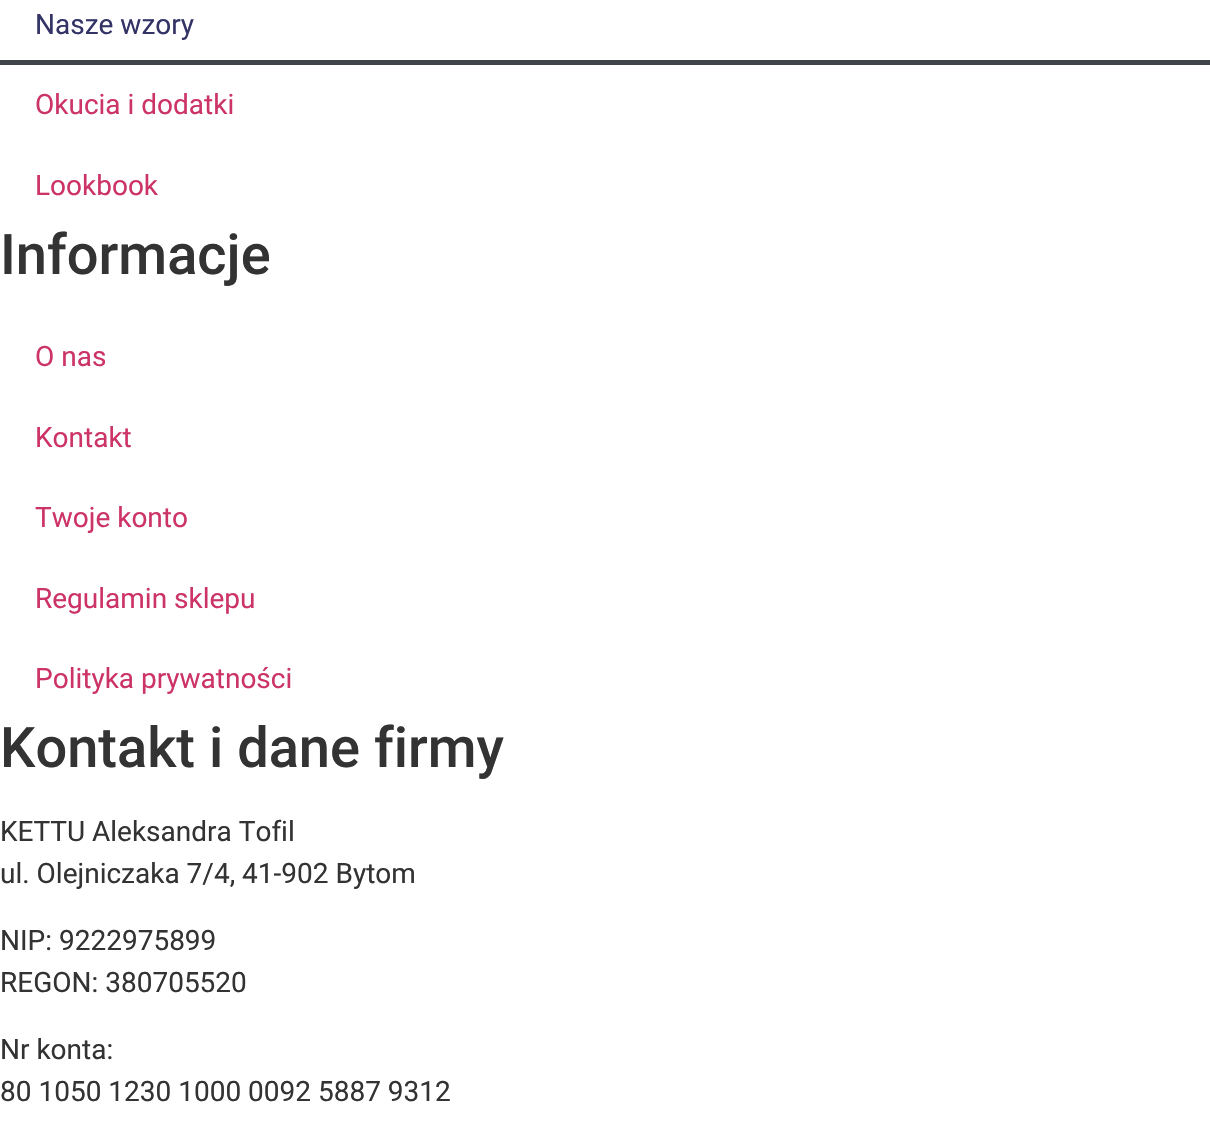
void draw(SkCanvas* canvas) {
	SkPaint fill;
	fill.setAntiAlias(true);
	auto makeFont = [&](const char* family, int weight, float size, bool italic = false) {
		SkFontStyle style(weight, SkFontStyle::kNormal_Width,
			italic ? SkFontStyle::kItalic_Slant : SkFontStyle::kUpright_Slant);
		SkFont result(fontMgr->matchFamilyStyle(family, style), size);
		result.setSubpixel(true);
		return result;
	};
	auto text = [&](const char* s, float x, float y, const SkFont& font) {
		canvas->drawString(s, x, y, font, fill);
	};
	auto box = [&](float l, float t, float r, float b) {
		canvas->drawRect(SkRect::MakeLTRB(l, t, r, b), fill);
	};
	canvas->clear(0xFFFFFFFF);
	fill.setColor(0xFF3F444B);
	box(0, 60, 1210, 65);
	auto font1 = makeFont("Roboto", 400, 28);
	fill.setColor(0xFF333366);
	text("Nasze wzory", 35, 34, font1);
	fill.setColor(0xFFCC3366);
	text("Okucia i dodatki", 35, 114, font1);
	text("Lookbook", 35, 195, font1);
	auto font2 = makeFont("Roboto", 500, 56);
	fill.setColor(0xFF333333);
	text("Informacje", 0, 274, font2);
	fill.setColor(0xFFCC3366);
	text("O nas", 35, 366, font1);
	text("Kontakt", 35, 447, font1);
	text("Twoje konto", 35, 527, font1);
	text("Regulamin sklepu", 35, 608, font1);
	text("Polityka prywatności", 35, 688, font1);
	fill.setColor(0xFF333333);
	text("Kontakt i dane firmy", 0, 767, font2);
	text("KETTU Aleksandra Tofil", 0, 841, font1);
	text("ul. Olejniczaka 7/4, 41-902 Bytom", 0, 883, font1);
	text("NIP: 9222975899", 0, 950, font1);
	text("REGON: 380705520", 0, 992, font1);
	text("Nr konta:", 0, 1059, font1);
	text("80 1050 1230 1000 0092 5887 9312", 0, 1101, font1);
}
